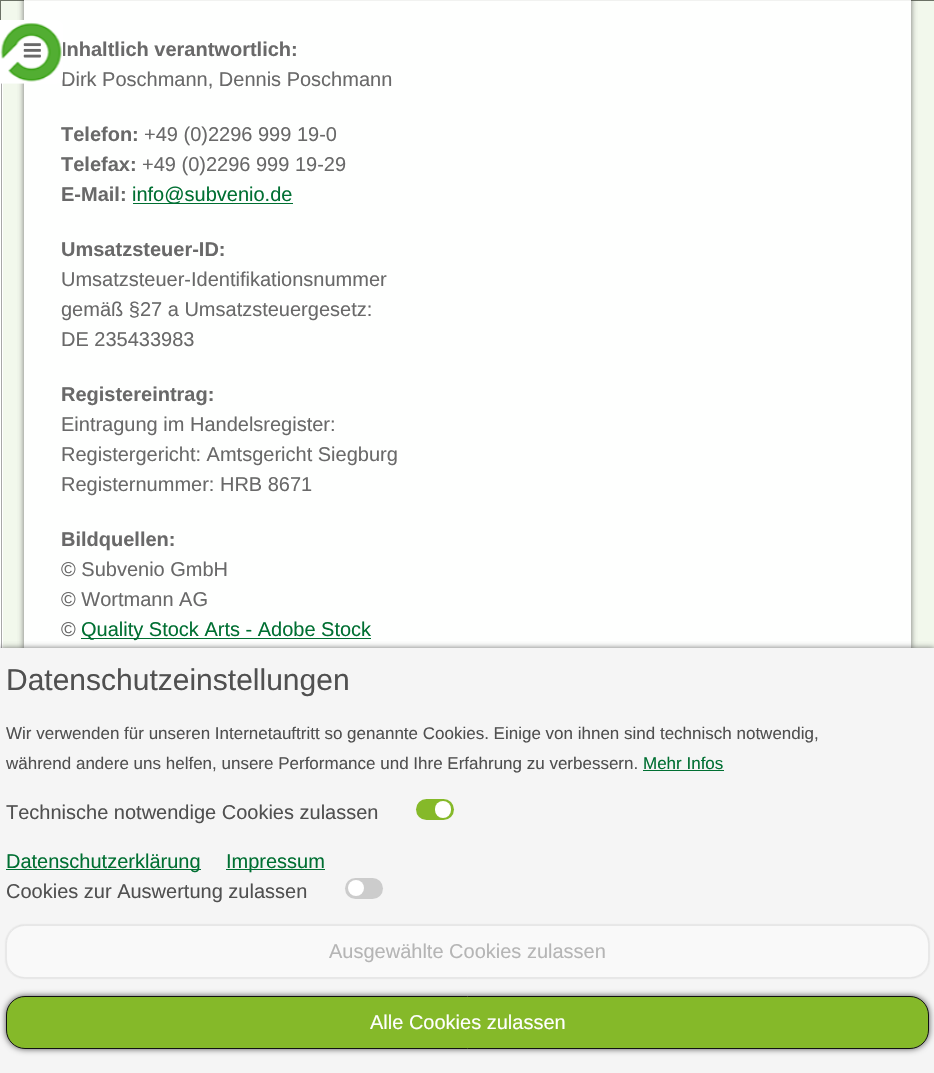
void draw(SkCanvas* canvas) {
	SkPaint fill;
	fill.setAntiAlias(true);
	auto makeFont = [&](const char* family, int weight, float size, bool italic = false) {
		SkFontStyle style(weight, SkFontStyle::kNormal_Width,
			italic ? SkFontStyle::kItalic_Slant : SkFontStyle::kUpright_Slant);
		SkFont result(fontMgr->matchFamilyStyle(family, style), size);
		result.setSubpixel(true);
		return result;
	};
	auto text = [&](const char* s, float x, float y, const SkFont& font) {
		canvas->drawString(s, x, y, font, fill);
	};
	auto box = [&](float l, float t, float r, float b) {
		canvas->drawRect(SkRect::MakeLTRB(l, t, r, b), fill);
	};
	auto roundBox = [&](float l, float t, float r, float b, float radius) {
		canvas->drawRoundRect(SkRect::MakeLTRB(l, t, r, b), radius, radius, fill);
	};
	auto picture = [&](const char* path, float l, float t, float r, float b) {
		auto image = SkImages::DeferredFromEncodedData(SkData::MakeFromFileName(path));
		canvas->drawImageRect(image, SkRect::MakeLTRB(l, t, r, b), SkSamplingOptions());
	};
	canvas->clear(0xFFF2F8EC);
	fill.setStyle(SkPaint::kStroke_Style);
	fill.setStrokeWidth(1);
	fill.setColor(0xFF6B7165);
	canvas->drawRect(SkRect::MakeLTRB(0.5f, 0.5f, 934.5f, 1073.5f), fill);
	fill.setStyle(SkPaint::kFill_Style);
	fill.setColor(0xFFFFFFFF);
	canvas->drawPath(SkPathBuilder().moveTo(-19, 13).lineTo(-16, 13).cubicTo(-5.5f, 13, 3, 21.5f, 3, 32).lineTo(3, 1042).cubicTo(3, 1052.5f, -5.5f, 1061, -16, 1061).lineTo(-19, 1061).close().detach(), fill);
	fill.setColor(0xFFA8A8A8);
	canvas->drawPath(SkPathBuilder(SkPathFillType::kEvenOdd).moveTo(-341, 12).lineTo(-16, 12).cubicTo(-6, 12, 2, 21, 2, 31).lineTo(2, 1042).cubicTo(2, 1053, -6, 1061, -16, 1061).lineTo(-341, 1061).close().moveTo(-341, 14).lineTo(-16, 14).cubicTo(-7, 14, 1, 22, 1, 31).lineTo(1, 1042).cubicTo(1, 1052, -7, 1060, -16, 1060).lineTo(-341, 1060).close().detach(), fill);
	canvas->save();
	canvas->clipPath(SkPathBuilder(SkPathFillType::kEvenOdd).moveTo(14, 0).lineTo(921, 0).lineTo(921, 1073).lineTo(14, 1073).close().moveTo(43, -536).lineTo(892, -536).cubicTo(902.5f, -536, 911, -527.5f, 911, -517).lineTo(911, 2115).cubicTo(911, 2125.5f, 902.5f, 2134, 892, 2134).lineTo(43, 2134).cubicTo(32.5f, 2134, 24, 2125.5f, 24, 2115).lineTo(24, -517).cubicTo(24, -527.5f, 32.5f, -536, 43, -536).close().detach(), true);
	fill.setColor(0xCC505050);
	fill.setMaskFilter(SkMaskFilter::MakeBlur(kNormal_SkBlurStyle, 3));
	canvas->drawRoundRect(SkRect::MakeLTRB(24, -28, 911, 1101), 19, 19, fill);
	fill.setMaskFilter(nullptr);
	canvas->restore();
	fill.setColor(0xE6FFFFFF);
	box(24, 0, 911, 648);
	fill.setColor(0xFF006F32);
	box(133, 203, 293, 204);
	box(81, 638, 371, 639);
	fill.setColor(0xCC505050);
	fill.setMaskFilter(SkMaskFilter::MakeBlur(kNormal_SkBlurStyle, 3));
	canvas->drawRect(SkRect::MakeLTRB(0, 648, 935, 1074), fill);
	fill.setMaskFilter(nullptr);
	fill.setColor(0xFFF5F5F5);
	box(0, 648, 934, 1073);
	fill.setColor(0xFF006F32);
	box(643, 770, 724, 771);
	fill.setColor(0xFF85B929);
	roundBox(416, 799, 454, 820, 10.5f);
	fill.setColor(0xFFFFFFFF);
	roundBox(435, 801, 451, 818, 8);
	fill.setColor(0xFF006F32);
	box(6, 869, 201, 870);
	box(226, 869, 325, 870);
	fill.setColor(0xFFCCCCCC);
	roundBox(345, 878, 383, 899, 10.5f);
	fill.setColor(0xFFFFFFFF);
	canvas->drawCircle(356, 888, 8, fill);
	canvas->save();
	canvas->clipPath(SkPathBuilder(SkPathFillType::kEvenOdd).moveTo(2, 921).lineTo(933, 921).lineTo(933, 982).lineTo(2, 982).close().moveTo(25, 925).lineTo(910, 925).cubicTo(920.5f, 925, 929, 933.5f, 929, 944).lineTo(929, 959).cubicTo(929, 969.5f, 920.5f, 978, 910, 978).lineTo(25, 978).cubicTo(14.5f, 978, 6, 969.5f, 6, 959).lineTo(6, 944).cubicTo(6, 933.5f, 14.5f, 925, 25, 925).close().detach(), true);
	fill.setColor(0x4D505050);
	fill.setMaskFilter(SkMaskFilter::MakeBlur(kNormal_SkBlurStyle, 1));
	canvas->drawRoundRect(SkRect::MakeLTRB(6, 925, 929, 978), 19, 19, fill);
	fill.setMaskFilter(nullptr);
	canvas->restore();
	fill.setColor(0x66FFFFFF);
	roundBox(6, 925, 929, 978, 19);
	fill.setStyle(SkPaint::kStroke_Style);
	fill.setColor(0x1A505050);
	canvas->drawRoundRect(SkRect::MakeLTRB(6.5f, 925.5f, 928.5f, 977.5f), 18.5f, 18.5f, fill);
	fill.setStyle(SkPaint::kFill_Style);
	fill.setColor(0xFF505050);
	fill.setMaskFilter(SkMaskFilter::MakeBlur(kNormal_SkBlurStyle, 3));
	canvas->drawRoundRect(SkRect::MakeLTRB(6, 996, 929, 1049), 19, 19, fill);
	fill.setMaskFilter(nullptr);
	fill.setColor(0xFF85B929);
	canvas->drawRoundRect(SkRect::MakeLTRB(6.5f, 996.5f, 928.5f, 1048.5f), 18.5f, 18.5f, fill);
	fill.setStyle(SkPaint::kStroke_Style);
	fill.setColor(0xFF111111);
	canvas->drawRoundRect(SkRect::MakeLTRB(6.5f, 996.5f, 928.5f, 1048.5f), 18.5f, 18.5f, fill);
	auto font1 = makeFont("Liberation Sans", 700, 20);
	fill.setStyle(SkPaint::kFill_Style);
	fill.setColor(0xFF696969);
	text("Inhaltlich verantwortlich:", 61, 56, font1);
	auto font2 = makeFont("Liberation Sans", 400, 20);
	text("Dirk Poschmann, Dennis Poschmann", 61, 86, font2);
	picture("image0.png", 0, 20, 63, 84);
	picture("image1.png", 23, 43, 41, 58);
	text("Telefon:", 61, 141, font1);
	text("+49 (0)2296 999 19-0", 144, 141, font2);
	text("Telefax:", 61, 171, font1);
	text("+49 (0)2296 999 19-29", 142, 171, font2);
	text("E-Mail:", 61, 201, font1);
	fill.setColor(0xFF006F32);
	text("info@subvenio.de", 132, 201, font2);
	fill.setColor(0xFF696969);
	text("Umsatzsteuer-ID:", 61, 256, font1);
	text("Umsatzsteuer-Identifikationsnummer", 61, 286, font2);
	text("gemäß §27 a Umsatzsteuergesetz:", 61, 316, font2);
	text("DE 235433983", 61, 346, font2);
	text("Registereintrag:", 61, 401, font1);
	text("Eintragung im Handelsregister:", 61, 431, font2);
	text("Registergericht: Amtsgericht Siegburg", 61, 461, font2);
	text("Registernummer: HRB 8671", 61, 491, font2);
	text("Bildquellen:", 61, 546, font1);
	text("© Subvenio GmbH", 61, 576, font2);
	text("© Wortmann AG", 61, 606, font2);
	text("©", 61, 636, font2);
	fill.setColor(0xFF006F32);
	text("Quality Stock Arts - Adobe Stock", 81, 636, font2);
	auto font3 = makeFont("Liberation Sans", 400, 30);
	fill.setColor(0xFF505050);
	text("Datenschutzeinstellungen", 6, 690, font3);
	auto font4 = makeFont("Liberation Sans", 400, 17);
	text("Wir verwenden für unseren Internetauftritt so genannte Cookies. Einige von ihnen sind technisch notwendig,", 6, 739, font4);
	text("während andere uns helfen, unsere Performance und Ihre Erfahrung zu verbessern.", 6, 769, font4);
	fill.setColor(0xFF006F32);
	text("Mehr Infos", 643, 769, font4);
	fill.setColor(0xFF505050);
	text("Technische notwendige Cookies zulassen", 6, 819, font2);
	fill.setColor(0xFF006F32);
	text("Datenschutzerklärung", 6, 868, font2);
	text("Impressum", 226, 868, font2);
	fill.setColor(0xFF505050);
	text("Cookies zur Auswertung zulassen", 6, 898, font2);
	fill.setColor(0xFFB5B5B5);
	text("Ausgewählte Cookies zulassen", 329, 958, font2);
	fill.setColor(0xFFFFFFFF);
	text("Alle Cookies zulassen", 370, 1029, font2);
}
